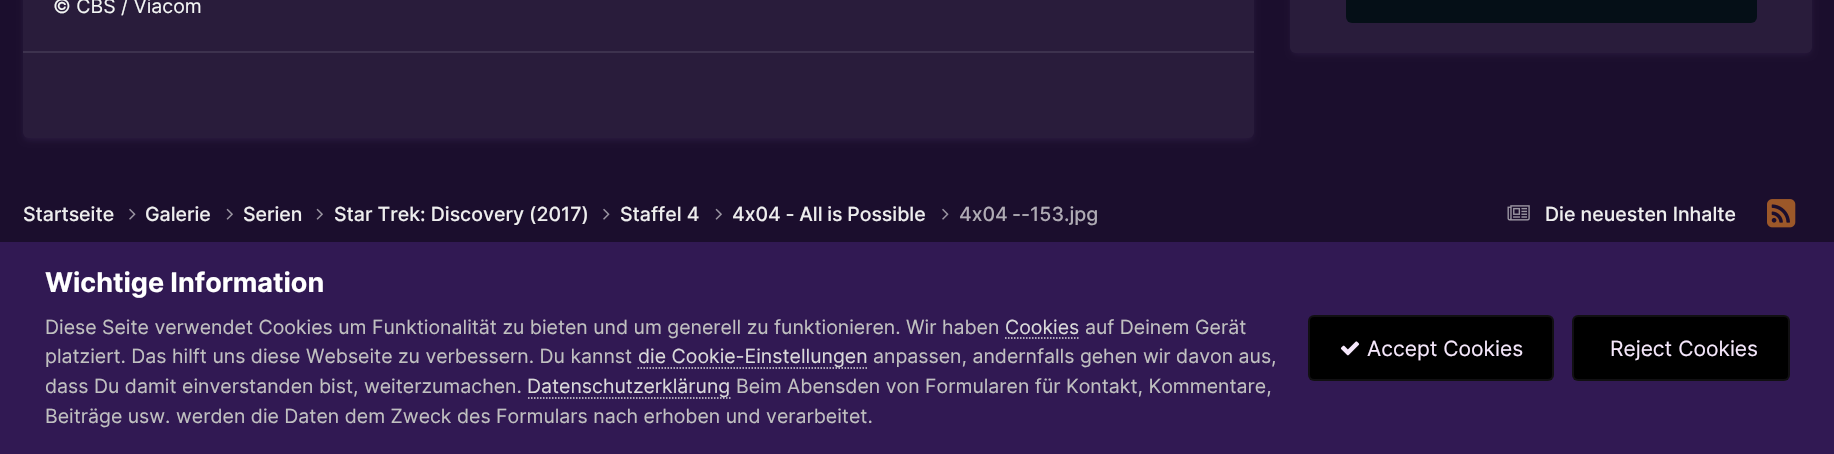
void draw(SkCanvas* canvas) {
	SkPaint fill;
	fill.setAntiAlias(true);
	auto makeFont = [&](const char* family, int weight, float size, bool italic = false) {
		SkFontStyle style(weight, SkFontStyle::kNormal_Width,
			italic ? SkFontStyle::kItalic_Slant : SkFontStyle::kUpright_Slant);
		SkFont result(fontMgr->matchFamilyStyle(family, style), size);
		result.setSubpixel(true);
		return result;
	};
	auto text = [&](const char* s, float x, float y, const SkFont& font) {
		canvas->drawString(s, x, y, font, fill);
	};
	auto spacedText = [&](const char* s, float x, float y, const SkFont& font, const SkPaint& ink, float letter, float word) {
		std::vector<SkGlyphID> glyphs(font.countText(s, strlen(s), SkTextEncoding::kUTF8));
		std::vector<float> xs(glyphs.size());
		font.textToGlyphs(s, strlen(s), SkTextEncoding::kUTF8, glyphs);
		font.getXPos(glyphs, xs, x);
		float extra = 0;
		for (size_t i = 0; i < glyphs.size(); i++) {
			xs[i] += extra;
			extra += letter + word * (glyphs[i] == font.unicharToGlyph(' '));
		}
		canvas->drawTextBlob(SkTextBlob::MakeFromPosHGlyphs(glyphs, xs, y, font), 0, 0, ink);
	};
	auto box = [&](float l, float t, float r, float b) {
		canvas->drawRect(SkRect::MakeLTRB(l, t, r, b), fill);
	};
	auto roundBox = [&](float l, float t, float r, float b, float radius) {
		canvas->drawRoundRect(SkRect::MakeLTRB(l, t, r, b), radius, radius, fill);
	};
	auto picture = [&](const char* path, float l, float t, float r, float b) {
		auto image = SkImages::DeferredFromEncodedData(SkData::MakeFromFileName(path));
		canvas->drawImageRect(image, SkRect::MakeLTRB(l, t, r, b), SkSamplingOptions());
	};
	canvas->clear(0xFF1B0E2D);
	fill.setColor(0x1AAF8EE0);
	fill.setMaskFilter(SkMaskFilter::MakeBlur(kNormal_SkBlurStyle, 3));
	canvas->drawRoundRect(SkRect::MakeLTRB(24, -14, 1253, 140), 5, 5, fill);
	fill.setMaskFilter(nullptr);
	fill.setColor(0xFF291C3B);
	roundBox(23, -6, 1254, 138, 6);
	fill.setColor(0xFF3D324E);
	box(23, 51, 1254, 53);
	fill.setColor(0x1AAF8EE0);
	fill.setMaskFilter(SkMaskFilter::MakeBlur(kNormal_SkBlurStyle, 3));
	canvas->drawRoundRect(SkRect::MakeLTRB(1292, -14, 1811, 54), 5, 5, fill);
	fill.setMaskFilter(nullptr);
	fill.setColor(0xFF291C3B);
	roundBox(1290, -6, 1812, 53, 6);
	fill.setColor(0xFF050F17);
	roundBox(1346, -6, 1757, 23, 6);
	picture("image0.png", 129, 208, 136, 220);
	picture("image1.png", 226, 208, 233, 220);
	picture("image1.png", 316, 208, 323, 220);
	picture("image0.png", 603, 208, 610, 220);
	picture("image1.png", 715, 208, 722, 220);
	picture("image0.png", 942, 208, 949, 220);
	picture("image2.png", 1507, 205, 1530, 221);
	picture("image3.png", 1767, 199, 1796, 228);
	fill.setColor(0xFF311953);
	box(0, 242, 1834, 454);
	fill.setStyle(SkPaint::kStroke_Style);
	fill.setStrokeWidth(1.5f);
	fill.setColor(0xFFDADADA);
	fill.setPathEffect(SkDashPathEffect::Make({{1.5f, 1.5f}}, 0));
	canvas->drawPath(SkPathBuilder().moveTo(1005, 338).lineTo(1078.5f, 338).detach(), fill);
	fill.setPathEffect(nullptr);
	fill.setPathEffect(SkDashPathEffect::Make({{1.5f, 1.5f}}, 0));
	canvas->drawPath(SkPathBuilder().moveTo(637.5f, 368).lineTo(867, 368).detach(), fill);
	fill.setPathEffect(nullptr);
	fill.setPathEffect(SkDashPathEffect::Make({{1.5f, 1.5f}}, 0));
	canvas->drawPath(SkPathBuilder().moveTo(528, 398).lineTo(730.5f, 398).detach(), fill);
	fill.setPathEffect(nullptr);
	fill.setStyle(SkPaint::kFill_Style);
	fill.setColor(0xFF000000);
	roundBox(1308, 315, 1554, 381, 6);
	fill.setStyle(SkPaint::kStroke_Style);
	fill.setStrokeWidth(2);
	fill.setColor(0x12F6E8FC);
	canvas->drawRoundRect(SkRect::MakeLTRB(1309, 316, 1553, 380), 5, 5, fill);
	picture("image4.png", 1340, 341, 1360, 356);
	fill.setStyle(SkPaint::kFill_Style);
	fill.setColor(0xFF000000);
	roundBox(1572, 315, 1790, 381, 6);
	fill.setStyle(SkPaint::kStroke_Style);
	fill.setColor(0x12F6E8FC);
	canvas->drawRoundRect(SkRect::MakeLTRB(1573, 316, 1789, 380), 5, 5, fill);
	auto font1 = makeFont("Inter", 400, 19.5f);
	fill.setStyle(SkPaint::kFill_Style);
	fill.setColor(0xFFF3F6F4);
	text("© CBS / Viacom", 53, 13, font1);
	auto font2 = makeFont("Inter", 500, 19.5f);
	fill.setColor(0xFFEEEEEE);
	text("Startseite", 23, 221, font2);
	text("Galerie", 145, 221, font2);
	text("Serien", 243, 221, font2);
	text("Star Trek: Discovery (2017)", 334, 221, font2);
	text("Staffel 4", 620, 221, font2);
	spacedText("4x04 - All is Possible", 732, 221, font2, fill, 0, -0.5f);
	fill.setColor(0xFFAFABB4);
	spacedText("4x04 --153.jpg", 959, 221, font2, fill, 0, -1);
	fill.setColor(0xFFEEEEEE);
	text("Die neuesten Inhalte", 1545, 221, font2);
	auto font3 = makeFont("Inter", 700, 27);
	fill.setColor(0xFFFFFFFF);
	text("Wichtige Information", 45, 292, font3);
	fill.setColor(0xFFC0C0C0);
	text("Diese Seite verwendet Cookies um Funktionalität zu bieten und um generell zu funktionieren. Wir haben", 45, 334, font1);
	fill.setColor(0xFFDADADA);
	text("Cookies", 1005, 334, font1);
	fill.setColor(0xFFC0C0C0);
	text("auf Deinem Gerät", 1085, 334, font1);
	text("platziert. Das hilft uns diese Webseite zu verbessern. Du kannst", 45, 363, font1);
	fill.setColor(0xFFDADADA);
	text("die Cookie-Einstellungen", 638, 363, font1);
	fill.setColor(0xFFC0C0C0);
	text("anpassen, andernfalls gehen wir davon aus,", 873, 363, font1);
	text("dass Du damit einverstanden bist, weiterzumachen.", 45, 393, font1);
	fill.setColor(0xFFDADADA);
	text("Datenschutzerklärung", 527, 393, font1);
	fill.setColor(0xFFC0C0C0);
	text("Beim Abensden von Formularen für Kontakt, Kommentare,", 736, 393, font1);
	text("Beiträge usw. werden die Daten dem Zweck des Formulars nach erhoben und verarbeitet.", 45, 423, font1);
	auto font4 = makeFont("Inter", 400, 21);
	fill.setColor(0xFFF6E8FC);
	text("Accept Cookies", 1367, 356, font4);
	text("Reject Cookies", 1610, 356, font4);
}
